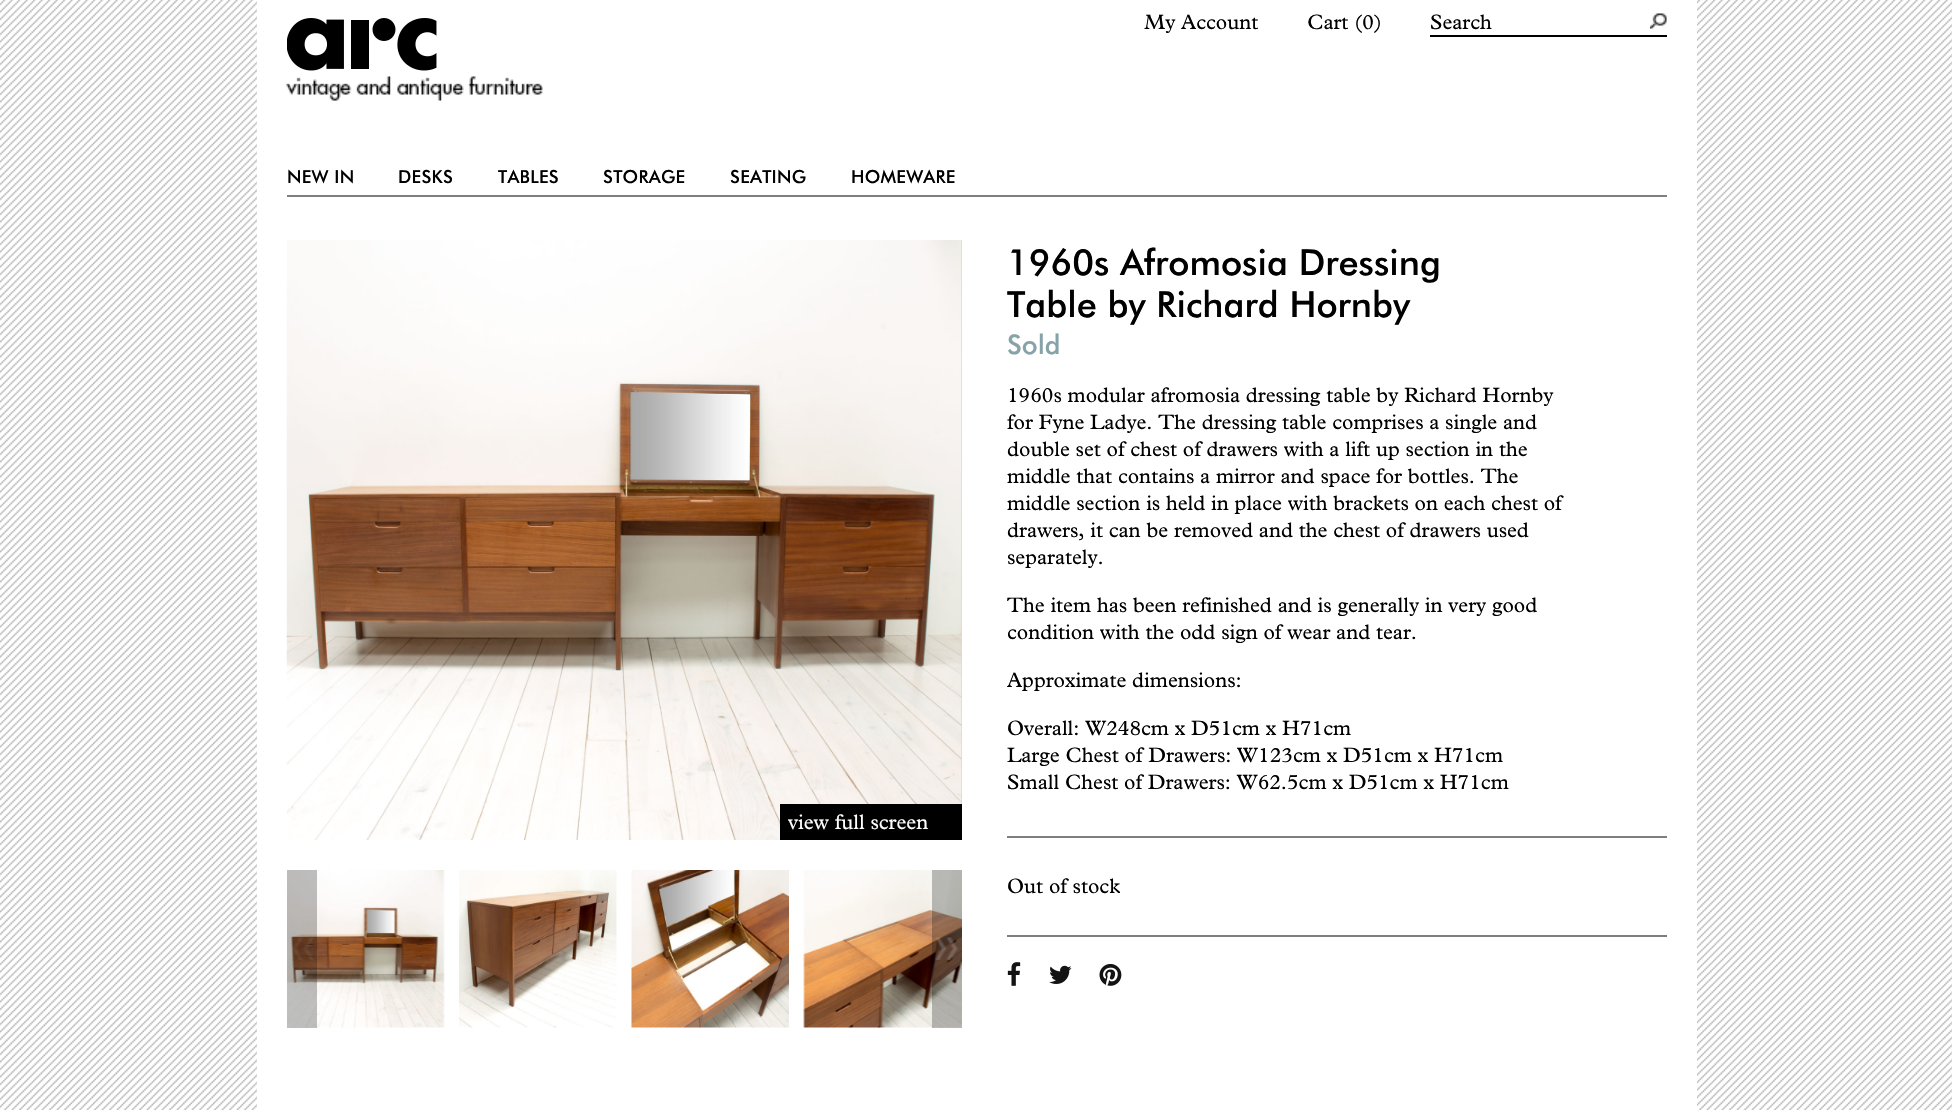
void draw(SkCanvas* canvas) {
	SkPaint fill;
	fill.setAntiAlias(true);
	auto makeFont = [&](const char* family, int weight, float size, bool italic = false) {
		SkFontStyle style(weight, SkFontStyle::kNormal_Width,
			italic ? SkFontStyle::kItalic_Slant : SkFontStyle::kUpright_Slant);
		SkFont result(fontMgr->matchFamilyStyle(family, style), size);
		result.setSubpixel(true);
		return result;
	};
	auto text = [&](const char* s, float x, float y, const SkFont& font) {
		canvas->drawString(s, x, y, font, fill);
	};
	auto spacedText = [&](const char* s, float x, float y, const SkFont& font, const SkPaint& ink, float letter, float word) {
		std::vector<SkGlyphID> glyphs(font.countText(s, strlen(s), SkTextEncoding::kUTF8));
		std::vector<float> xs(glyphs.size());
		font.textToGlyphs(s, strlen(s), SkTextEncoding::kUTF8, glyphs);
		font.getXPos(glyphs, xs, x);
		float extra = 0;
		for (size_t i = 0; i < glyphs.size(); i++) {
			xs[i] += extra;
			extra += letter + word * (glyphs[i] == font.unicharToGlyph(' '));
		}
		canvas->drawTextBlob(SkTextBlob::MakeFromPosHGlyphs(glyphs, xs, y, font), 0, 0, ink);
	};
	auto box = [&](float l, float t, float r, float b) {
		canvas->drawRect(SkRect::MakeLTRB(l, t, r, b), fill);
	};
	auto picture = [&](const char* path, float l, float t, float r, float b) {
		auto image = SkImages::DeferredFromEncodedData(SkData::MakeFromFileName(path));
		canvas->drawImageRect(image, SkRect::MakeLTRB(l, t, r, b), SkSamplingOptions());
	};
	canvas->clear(0xFFFFFFFF);
	picture("image0.png", 0, 0, 1952, 1110);
	fill.setColor(0xFFFFFFFF);
	box(257, 0, 1697, 1110);
	picture("image1.png", 287, 18, 437, 71);
	picture("image2.png", 1650, 13, 1667, 29);
	fill.setColor(0xFF000000);
	box(1430, 35, 1667, 37);
	picture("image3.png", 286, 76, 543, 101);
	fill.setColor(0xFF7F7F7F);
	box(287, 195, 1667, 197);
	fill.setColor(0xFFDADADC);
	box(961, 240, 962, 804);
	picture("image4.png", 286, 240, 962, 840);
	fill.setColor(0xFF000000);
	box(780, 804, 962, 840);
	picture("image5.png", 287, 870, 445, 1028);
	picture("image6.png", 459, 870, 617, 1028);
	picture("image7.png", 631, 870, 789, 1028);
	picture("image8.png", 803, 870, 962, 1028);
	fill.setColor(0x40000000);
	box(287, 870, 317, 1028);
	picture("image9.png", 292, 937, 314, 960);
	box(932, 870, 962, 1028);
	picture("image10.png", 935, 937, 958, 960);
	fill.setColor(0xFF7F7F7F);
	box(1007, 836, 1667, 838);
	box(1007, 935, 1667, 937);
	picture("image11.png", 1007, 962, 1021, 986);
	picture("image12.png", 1049, 965, 1072, 984);
	picture("image13.png", 1099, 964, 1122, 986);
	auto font1 = makeFont("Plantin", 400, 21);
	fill.setColor(0xFF000000);
	text("My Account", 1144, 29, font1);
	text("Cart (0)", 1307, 29, font1);
	text("Search", 1430, 29, font1);
	auto font2 = makeFont("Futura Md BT", 500, 18);
	spacedText("NEW IN", 287, 183, font2, fill, 0.25f, 0);
	spacedText("DESKS", 398, 183, font2, fill, 0.25f, 0);
	spacedText("TABLES", 498, 183, font2, fill, 0.25f, 0);
	spacedText("STORAGE", 603, 183, font2, fill, 0.25f, 0);
	spacedText("SEATING", 730, 183, font2, fill, 0.25f, 0);
	spacedText("HOMEWARE", 851, 183, font2, fill, 0.25f, 0);
	fill.setColor(0xFFFFFFFF);
	text("view full screen", 788, 829, font1);
	auto font3 = makeFont("Futura Md BT", 500, 36);
	fill.setColor(0xFF000000);
	text("1960s Afromosia Dressing", 1007, 275, font3);
	text("Table by Richard Hornby", 1007, 317, font3);
	auto font4 = makeFont("Futura Md BT", 500, 27);
	fill.setColor(0xFF85A3A8);
	text("Sold", 1007, 354, font4);
	fill.setColor(0xFF000000);
	text("1960s modular afromosia dressing table by Richard Hornby", 1007, 402, font1);
	text("for Fyne Ladye. The dressing table comprises a single and", 1007, 429, font1);
	text("double set of chest of drawers with a lift up section in the", 1007, 456, font1);
	text("middle that contains a mirror and space for bottles. The", 1007, 483, font1);
	text("middle section is held in place with brackets on each chest of", 1007, 510, font1);
	text("drawers, it can be removed and the chest of drawers used", 1007, 537, font1);
	text("separately.", 1007, 564, font1);
	text("The item has been refinished and is generally in very good", 1007, 612, font1);
	text("condition with the odd sign of wear and tear.", 1007, 639, font1);
	text("Approximate dimensions:", 1007, 687, font1);
	text("Overall: W248cm x D51cm x H71cm", 1007, 735, font1);
	text("Large Chest of Drawers: W123cm x D51cm x H71cm", 1007, 762, font1);
	text("Small Chest of Drawers: W62.5cm x D51cm x H71cm", 1007, 789, font1);
	text("Out of stock", 1007, 893, font1);
}
